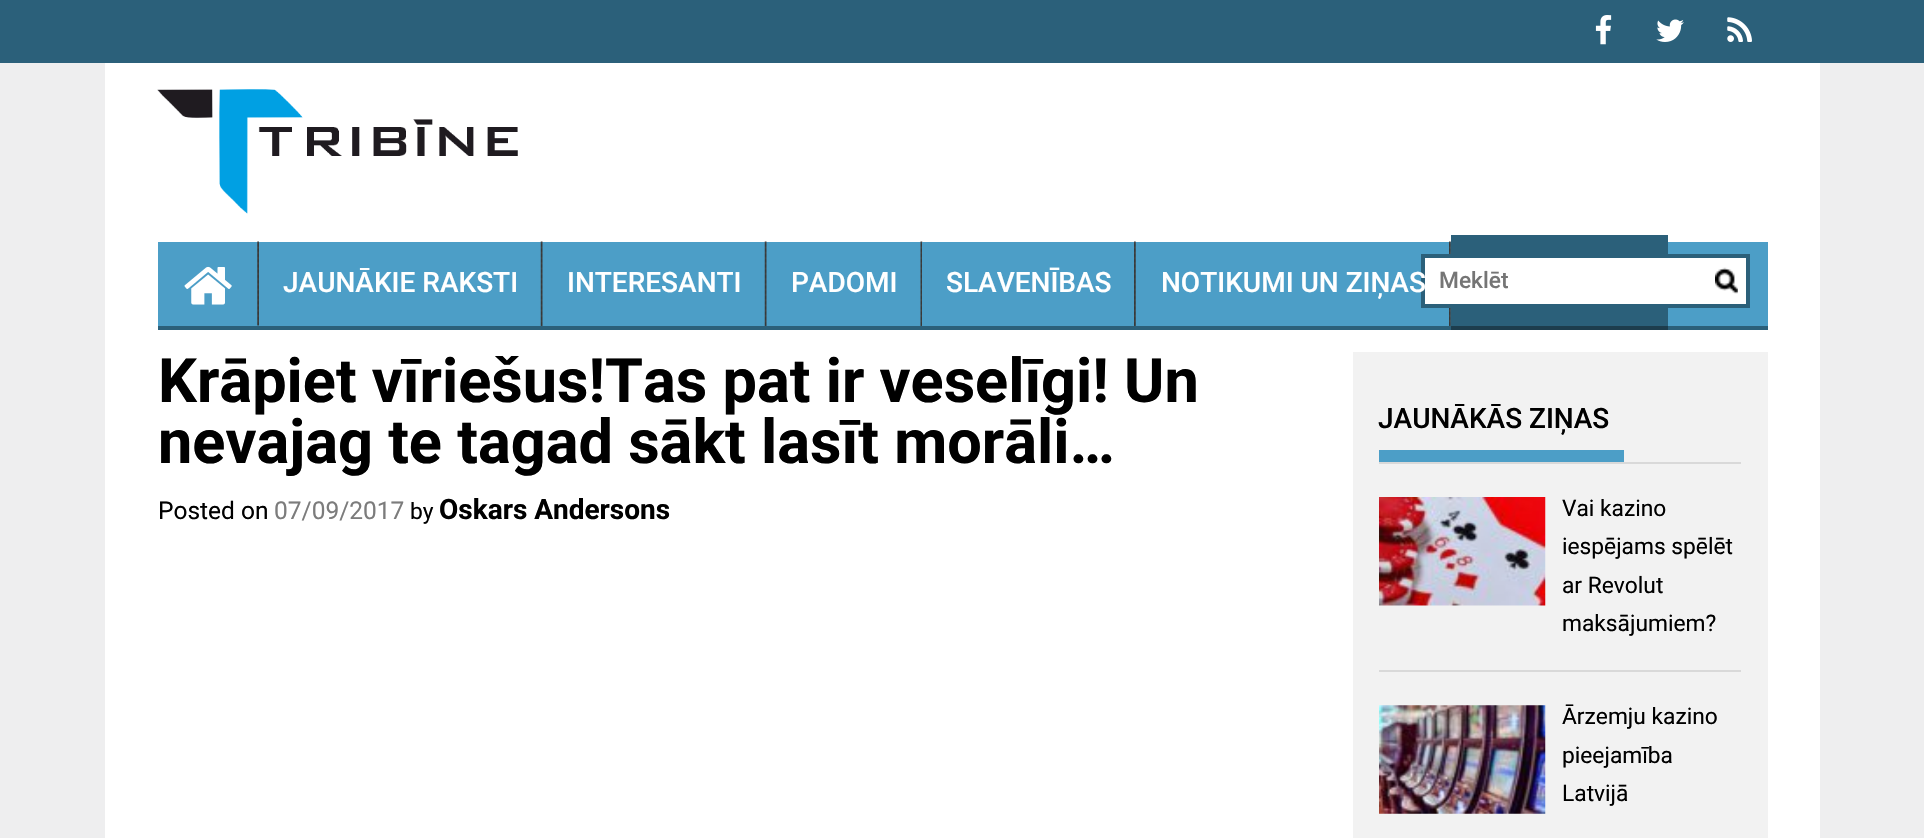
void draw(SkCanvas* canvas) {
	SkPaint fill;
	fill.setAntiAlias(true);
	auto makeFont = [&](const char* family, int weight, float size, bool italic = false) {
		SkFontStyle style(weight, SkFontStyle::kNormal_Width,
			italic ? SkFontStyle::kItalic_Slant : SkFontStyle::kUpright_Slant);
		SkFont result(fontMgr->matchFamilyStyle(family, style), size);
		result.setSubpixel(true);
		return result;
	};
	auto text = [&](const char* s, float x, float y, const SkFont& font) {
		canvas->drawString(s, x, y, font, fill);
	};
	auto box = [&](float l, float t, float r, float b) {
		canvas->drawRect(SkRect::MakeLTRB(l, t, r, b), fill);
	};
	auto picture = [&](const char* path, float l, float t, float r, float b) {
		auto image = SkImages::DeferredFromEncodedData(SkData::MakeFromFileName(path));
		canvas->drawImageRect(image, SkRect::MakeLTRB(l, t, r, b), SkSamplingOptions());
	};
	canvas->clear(0xFFEEEEEF);
	fill.setColor(0xFF2B607A);
	box(0, 0, 1924, 63);
	picture("image0.png", 1595, 15, 1612, 45);
	picture("image1.png", 1656, 19, 1684, 42);
	picture("image2.png", 1727, 17, 1752, 42);
	fill.setColor(0xFFFFFFFF);
	box(105, 63, 1820, 838);
	picture("image3.png", 157, 89, 518, 214);
	fill.setColor(0xFF4C9EC7);
	box(158, 242, 1768, 326);
	fill.setColor(0xFF2B607A);
	box(158, 326, 1768, 330);
	picture("image4.png", 257, 241, 259, 326);
	picture("image5.png", 184, 266, 232, 305);
	picture("image6.png", 540, 241, 543, 326);
	picture("image6.png", 764, 241, 767, 326);
	picture("image7.png", 920, 241, 923, 326);
	fill.setColor(0xFF4C9EC7);
	box(922, 242, 923, 326);
	picture("image8.png", 1134, 241, 1136, 326);
	picture("image8.png", 1449, 241, 1451, 326);
	fill.setColor(0xFF2B607A);
	box(1451, 235, 1668, 326);
	fill.setColor(0xFF1D3D4D);
	box(1451, 326, 1668, 330);
	fill.setColor(0xFFFFFFFF);
	canvas->drawRect(SkRect::MakeLTRB(1423, 256, 1748, 306), fill);
	fill.setStyle(SkPaint::kStroke_Style);
	fill.setStrokeWidth(4);
	fill.setColor(0xFF2B607A);
	canvas->drawRect(SkRect::MakeLTRB(1423, 256, 1748, 306), fill);
	picture("image9.png", 1715, 267, 1738, 294);
	fill.setStyle(SkPaint::kFill_Style);
	fill.setColor(0xFFF2F2F2);
	box(1353, 352, 1768, 838);
	fill.setColor(0xFFD9D9D9);
	box(1379, 462, 1741, 464);
	fill.setColor(0xFF4C9EC7);
	box(1379, 450, 1624, 462);
	fill.setColor(0xFFD9D9D9);
	box(1379, 670, 1741, 672);
	picture("image10.png", 1379, 497, 1546, 606);
	picture("image11.png", 1379, 705, 1546, 814);
	auto font1 = makeFont("Roboto", 500, 28);
	fill.setColor(0xFFFFFFFF);
	text("JAUNĀKIE RAKSTI", 283, 292, font1);
	text("INTERESANTI", 567, 292, font1);
	text("PADOMI", 791, 292, font1);
	text("SLAVENĪBAS", 946, 292, font1);
	text("NOTIKUMI UN ZIŅAS", 1161, 292, font1);
	auto font2 = makeFont("Roboto", 500, 22.75f);
	fill.setColor(0xFF757575);
	text("Meklēt", 1439, 288, font2);
	auto font3 = makeFont("Roboto", 700, 61.25f);
	fill.setColor(0xFF000000);
	text("Krāpiet vīriešus!Tas pat ir veselīgi! Un", 158, 402, font3);
	text("nevajag te tagad sākt lasīt morāli…", 158, 463, font3);
	auto font4 = makeFont("Roboto", 400, 24.5f);
	text("Posted on", 158, 519, font4);
	fill.setColor(0xFF7C7C7C);
	text("07/09/2017", 274, 519, font4);
	auto font5 = makeFont("Roboto", 400, 22.75f);
	fill.setColor(0xFF000000);
	text("by", 410, 519, font5);
	auto font6 = makeFont("Roboto", 700, 28);
	text("Oskars Andersons", 439, 519, font6);
	text("JAUNĀKĀS ZIŅAS", 1378, 428, font1);
	text("Vai kazino", 1562, 516, font5);
	text("iespējams spēlēt", 1562, 554, font5);
	text("ar Revolut", 1562, 593, font5);
	text("maksājumiem?", 1562, 631, font5);
	text("Ārzemju kazino", 1562, 724, font5);
	text("pieejamība", 1562, 763, font5);
	text("Latvijā", 1562, 801, font5);
}
